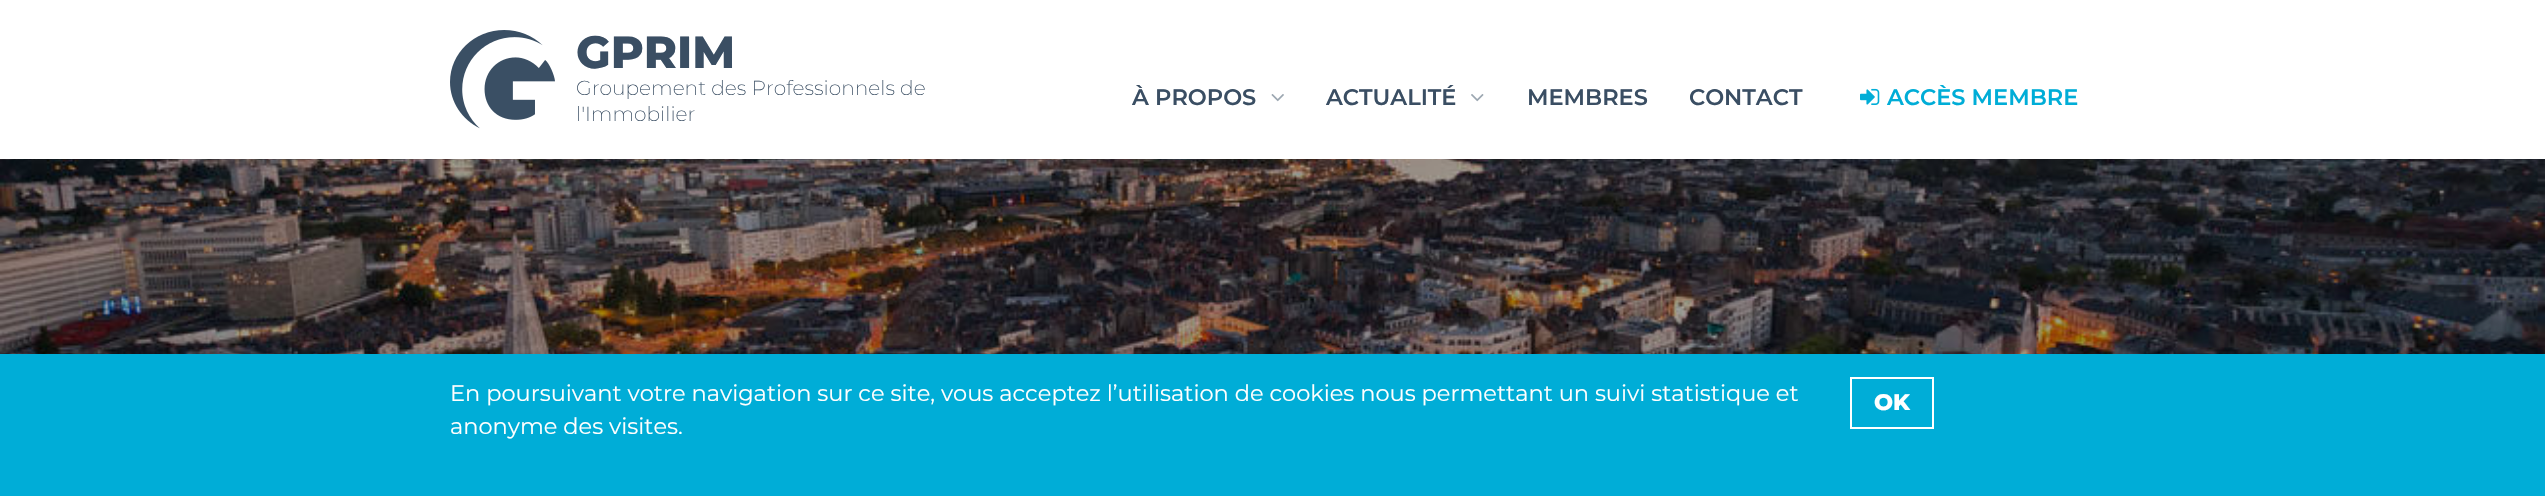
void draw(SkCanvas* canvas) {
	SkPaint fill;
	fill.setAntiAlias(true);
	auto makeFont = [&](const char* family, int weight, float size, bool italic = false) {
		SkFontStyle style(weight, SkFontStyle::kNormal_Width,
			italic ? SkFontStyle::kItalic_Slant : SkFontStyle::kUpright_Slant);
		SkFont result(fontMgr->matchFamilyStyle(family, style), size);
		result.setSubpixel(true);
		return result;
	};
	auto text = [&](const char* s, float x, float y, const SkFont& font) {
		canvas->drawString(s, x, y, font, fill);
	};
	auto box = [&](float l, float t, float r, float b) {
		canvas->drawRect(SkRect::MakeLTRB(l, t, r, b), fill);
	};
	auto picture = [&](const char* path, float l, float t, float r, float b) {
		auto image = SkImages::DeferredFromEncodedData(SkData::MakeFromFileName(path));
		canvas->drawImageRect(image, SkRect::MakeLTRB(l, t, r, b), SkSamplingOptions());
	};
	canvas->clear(0xFFFFFFFF);
	picture("image0.png", 450, 30, 555, 129);
	picture("image1.png", 1271, 94, 1284, 102);
	picture("image2.png", 1471, 94, 1484, 102);
	picture("image3.png", 1860, 88, 1880, 105);
	picture("image4.png", 0, 159, 2545, 354);
	fill.setColor(0xFF00ADD7);
	box(0, 354, 2545, 496);
	fill.setStyle(SkPaint::kStroke_Style);
	fill.setStrokeWidth(2);
	fill.setColor(0xFFFFFFFF);
	canvas->drawRect(SkRect::MakeLTRB(1851, 378, 1933, 428), fill);
	auto font1 = makeFont("Montserrat", 800, 45);
	fill.setStyle(SkPaint::kFill_Style);
	fill.setColor(0xFF3A4E63);
	text("GPRIM", 576, 68, font1);
	auto font2 = makeFont("Montserrat", 200, 20.25f);
	text("Groupement des Professionnels de", 576, 95, font2);
	text("l'Immobilier", 576, 121, font2);
	auto font3 = makeFont("Montserrat", 600, 22.5f);
	text("À PROPOS", 1132, 105, font3);
	text("ACTUALITÉ", 1326, 105, font3);
	text("MEMBRES", 1527, 105, font3);
	text("CONTACT", 1689, 105, font3);
	fill.setColor(0xFF00ADD7);
	text("ACCÈS MEMBRE", 1887, 105, font3);
	auto font4 = makeFont("Montserrat", 400, 22.5f);
	fill.setColor(0xFFFFFFFF);
	text("En poursuivant votre navigation sur ce site, vous acceptez l’utilisation de cookies nous permettant un suivi statistique et", 450, 401, font4);
	text("anonyme des visites.", 450, 434, font4);
	auto font5 = makeFont("Montserrat", 800, 22.5f);
	text("OK", 1874, 410, font5);
}
